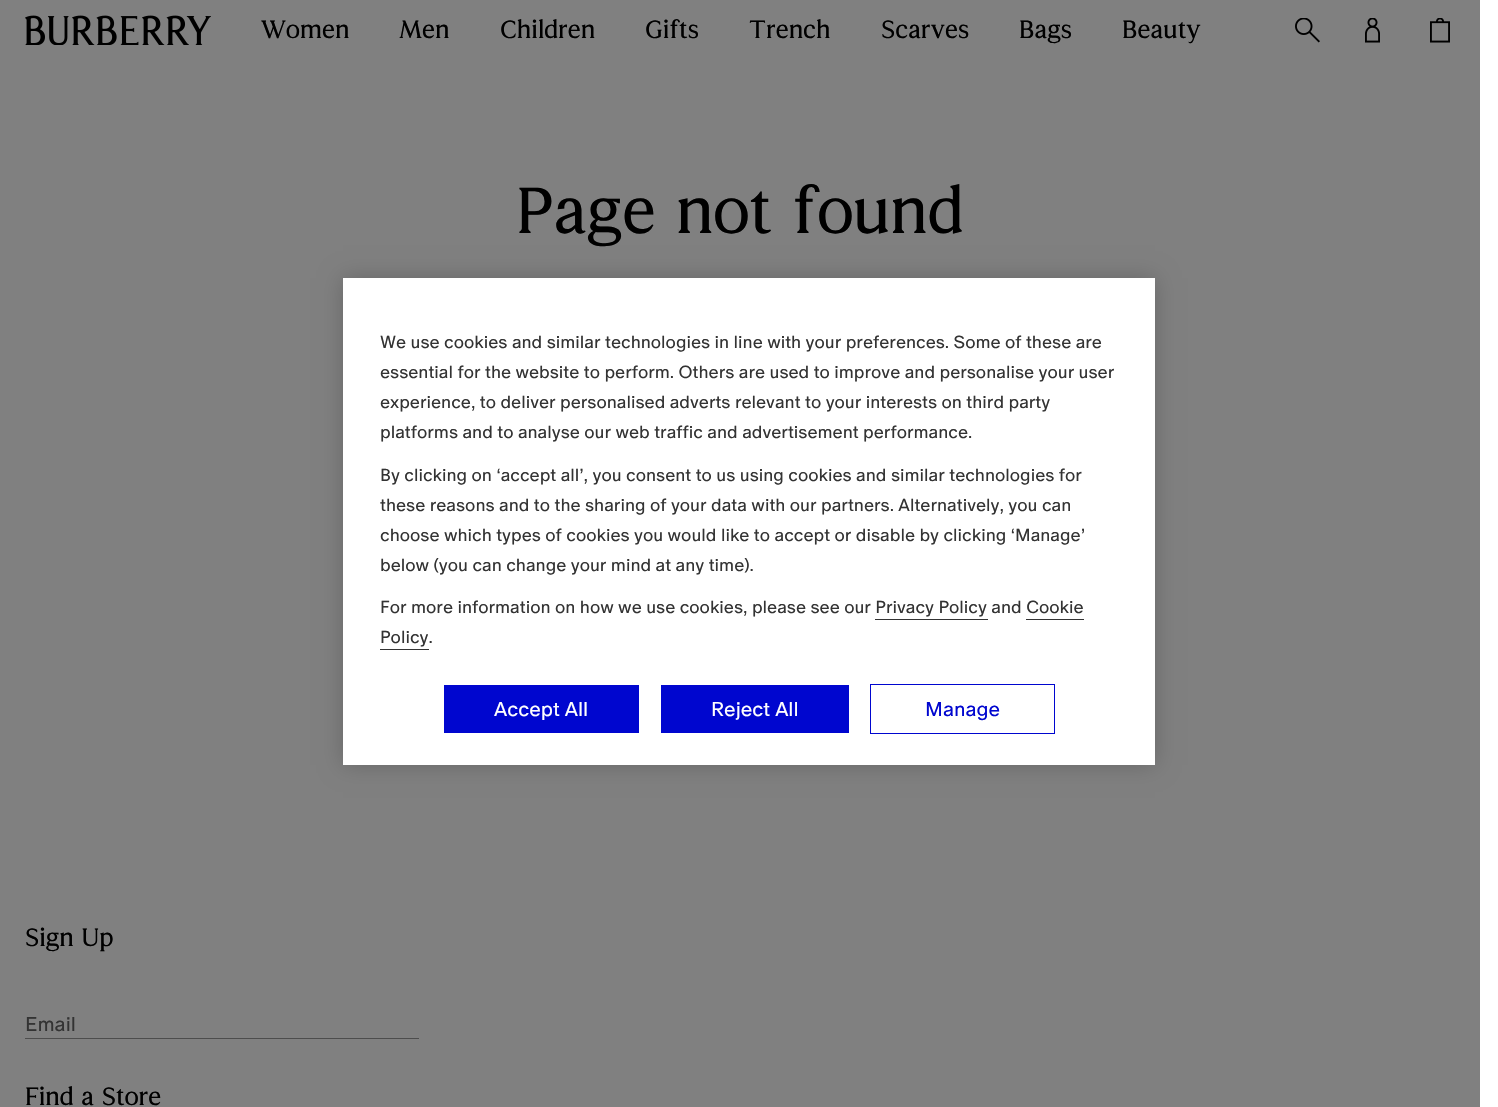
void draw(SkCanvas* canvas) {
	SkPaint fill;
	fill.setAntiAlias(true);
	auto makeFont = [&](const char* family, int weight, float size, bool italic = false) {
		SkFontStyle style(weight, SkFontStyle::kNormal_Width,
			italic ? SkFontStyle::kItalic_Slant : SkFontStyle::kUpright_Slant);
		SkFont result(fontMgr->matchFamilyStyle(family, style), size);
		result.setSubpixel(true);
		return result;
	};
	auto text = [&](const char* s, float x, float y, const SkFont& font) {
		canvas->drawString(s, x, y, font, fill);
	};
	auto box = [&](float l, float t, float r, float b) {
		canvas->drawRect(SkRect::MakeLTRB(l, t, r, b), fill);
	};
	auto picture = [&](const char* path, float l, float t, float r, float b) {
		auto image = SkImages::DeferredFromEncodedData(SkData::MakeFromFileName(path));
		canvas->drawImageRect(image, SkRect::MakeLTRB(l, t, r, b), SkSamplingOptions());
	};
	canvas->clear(0xFFFFFFFF);
	fill.setColor(0xFF808080);
	box(0, 0, 1480, 1107);
	picture("image0.png", 25, 15, 211, 45);
	picture("image1.png", 1295, 18, 1320, 43);
	picture("image2.png", 1365, 18, 1380, 43);
	picture("image3.png", 1430, 18, 1450, 43);
	fill.setColor(0xFF4D4D4D);
	box(25, 1038, 419, 1039);
	fill.setColor(0x33000000);
	fill.setMaskFilter(SkMaskFilter::MakeBlur(kNormal_SkBlurStyle, 11));
	canvas->drawRect(SkRect::MakeLTRB(343, 278, 1155, 765), fill);
	fill.setMaskFilter(nullptr);
	fill.setColor(0xFFFFFFFF);
	box(343, 278, 1155, 765);
	fill.setColor(0xFF333333);
	box(875, 619, 988, 620);
	box(1026, 619, 1084, 620);
	box(380, 649, 429, 650);
	fill.setColor(0xFF0006CF);
	box(444, 685, 639, 733);
	box(661, 685, 849, 733);
	fill.setStyle(SkPaint::kStroke_Style);
	fill.setStrokeWidth(1);
	canvas->drawRect(SkRect::MakeLTRB(870.5f, 684.5f, 1054.5f, 733.5f), fill);
	auto font1 = makeFont("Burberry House", 400, 25);
	fill.setStyle(SkPaint::kFill_Style);
	fill.setColor(0xFF000000);
	text("Women", 261, 38, font1);
	text("Men", 399, 38, font1);
	text("Children", 500, 38, font1);
	text("Gifts", 645, 38, font1);
	text("Trench", 749, 38, font1);
	text("Scarves", 881, 38, font1);
	text("Bags", 1019, 38, font1);
	text("Beauty", 1122, 38, font1);
	auto font2 = makeFont("Burberry House", 400, 65);
	text("Page not found", 516, 233, font2);
	text("Sign Up", 25, 946, font1);
	auto font3 = makeFont("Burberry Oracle", 400, 20);
	fill.setColor(0xFF333333);
	text("Email", 25, 1031, font3);
	fill.setColor(0xFF000000);
	text("Find a Store", 25, 1105, font1);
	auto font4 = makeFont("Burberry Oracle", 400, 17.5f);
	fill.setColor(0xFF333333);
	text("We use cookies and similar technologies in line with your preferences. Some of these are", 380, 348, font4);
	text("essential for the website to perform. Others are used to improve and personalise your user", 380, 378, font4);
	text("experience, to deliver personalised adverts relevant to your interests on third party", 380, 408, font4);
	text("platforms and to analyse our web traffic and advertisement performance.", 380, 438, font4);
	text("By clicking on ‘accept all’, you consent to us using cookies and similar technologies for", 380, 481, font4);
	text("these reasons and to the sharing of your data with our partners. Alternatively, you can", 380, 511, font4);
	text("choose which types of cookies you would like to accept or disable by clicking ‘Manage’", 380, 541, font4);
	text("below (you can change your mind at any time).", 380, 571, font4);
	text("For more information on how we use cookies, please see our Privacy Policy and Cookie", 380, 613, font4);
	text("Policy.", 380, 643, font4);
	fill.setColor(0xFFFFFFFF);
	text("Accept All", 494, 716, font3);
	text("Reject All", 711, 716, font3);
	fill.setColor(0xFF0006CF);
	text("Manage", 925, 716, font3);
}
